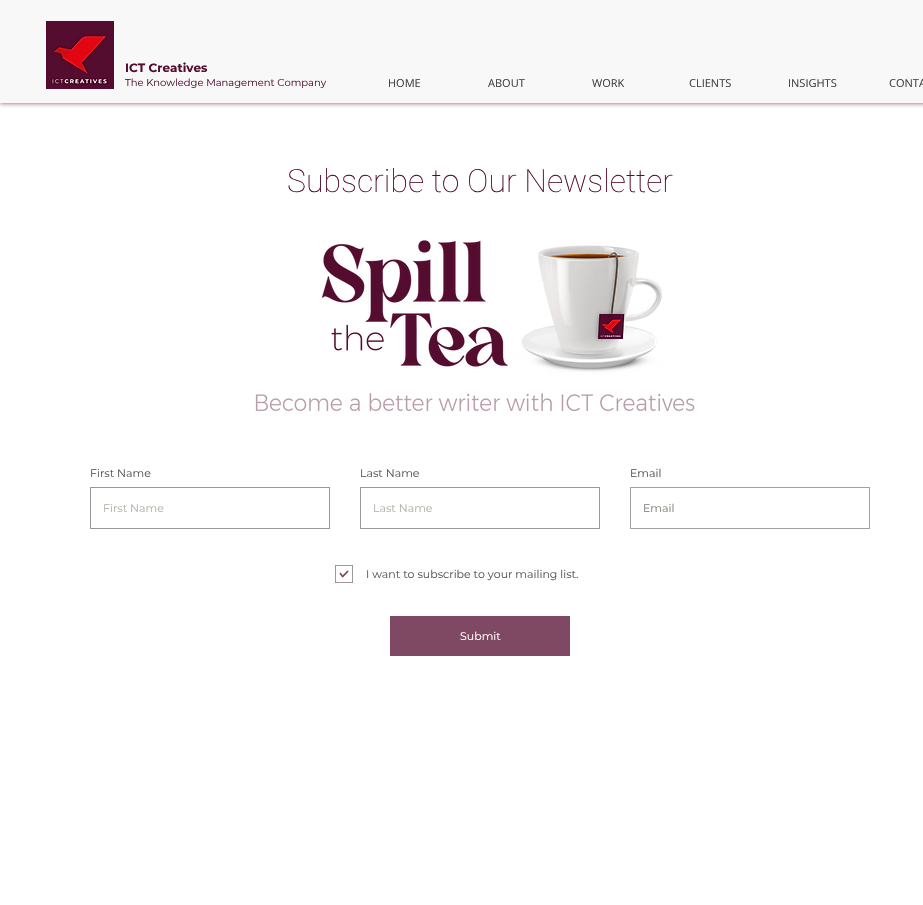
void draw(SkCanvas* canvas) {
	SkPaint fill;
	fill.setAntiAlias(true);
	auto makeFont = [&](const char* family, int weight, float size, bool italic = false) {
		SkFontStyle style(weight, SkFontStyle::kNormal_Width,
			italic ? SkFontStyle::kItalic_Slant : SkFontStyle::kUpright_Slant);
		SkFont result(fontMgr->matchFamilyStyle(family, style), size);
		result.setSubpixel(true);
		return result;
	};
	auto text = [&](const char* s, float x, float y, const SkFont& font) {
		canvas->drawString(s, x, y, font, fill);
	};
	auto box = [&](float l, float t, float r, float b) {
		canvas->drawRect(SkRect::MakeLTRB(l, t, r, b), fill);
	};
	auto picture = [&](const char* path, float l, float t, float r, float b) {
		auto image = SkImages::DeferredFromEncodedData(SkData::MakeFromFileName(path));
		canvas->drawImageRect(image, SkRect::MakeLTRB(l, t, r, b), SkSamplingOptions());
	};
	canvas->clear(0xFFFFFFFF);
	fill.setColor(0xBD540D2F);
	fill.setMaskFilter(SkMaskFilter::MakeBlur(kNormal_SkBlurStyle, 2.5f));
	canvas->drawRect(SkRect::MakeLTRB(0, 0, 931, 103), fill);
	fill.setMaskFilter(nullptr);
	fill.setColor(0xFFF8F8F8);
	box(0, 0, 923, 103);
	picture("image0.png", 46, 21, 114, 89);
	picture("image1.png", 255, 240, 695, 412);
	fill.setStyle(SkPaint::kStroke_Style);
	fill.setStrokeWidth(1);
	fill.setColor(0xFF9B9997);
	canvas->drawRect(SkRect::MakeLTRB(90.5f, 487.5f, 329.5f, 528.5f), fill);
	canvas->drawRect(SkRect::MakeLTRB(360.5f, 487.5f, 599.5f, 528.5f), fill);
	fill.setColor(0xFFA3A29F);
	canvas->drawRect(SkRect::MakeLTRB(630.5f, 487.5f, 869.5f, 528.5f), fill);
	fill.setColor(0xFF9B9997);
	canvas->drawRect(SkRect::MakeLTRB(335.5f, 565.5f, 352.5f, 582.5f), fill);
	picture("image2.png", 339, 570, 349, 578);
	fill.setStyle(SkPaint::kFill_Style);
	fill.setColor(0xFF7F4963);
	box(390, 616, 570, 656);
	auto font1 = makeFont("Montserrat", 700, 12);
	fill.setColor(0xFF540D2F);
	text("ICT Creatives", 125, 72, font1);
	auto font2 = makeFont("Montserrat", 400, 10);
	text("The Knowledge Management Company", 125, 86, font2);
	auto font3 = makeFont("Open Sans", 400, 11);
	fill.setColor(0xFF414141);
	text("HOME", 388, 87, font3);
	text("ABOUT", 488, 87, font3);
	text("WORK", 592, 87, font3);
	text("CLIENTS", 689, 87, font3);
	text("INSIGHTS", 788, 87, font3);
	text("CONTA", 889, 87, font3);
	auto font4 = makeFont("Roboto", 100, 32);
	fill.setColor(0xFF540D2F);
	text("Subscribe to Our Newsletter", 287, 192, font4);
	auto font5 = makeFont("Montserrat", 400, 11);
	fill.setColor(0xFF585551);
	text("First Name", 90, 477, font5);
	fill.setColor(0xFFB5B1A9);
	text("First Name", 103, 512, font5);
	fill.setColor(0xFF585551);
	text("Last Name", 360, 477, font5);
	fill.setColor(0xFFB5B1A9);
	text("Last Name", 373, 512, font5);
	fill.setColor(0xFF585551);
	text("Email", 630, 477, font5);
	fill.setColor(0xFF848079);
	text("Email", 643, 512, font5);
	fill.setColor(0xFF585551);
	text("I want to subscribe to your mailing list.", 366, 578, font5);
	fill.setColor(0xFFFFFFFF);
	text("Submit", 460, 640, font5);
}
